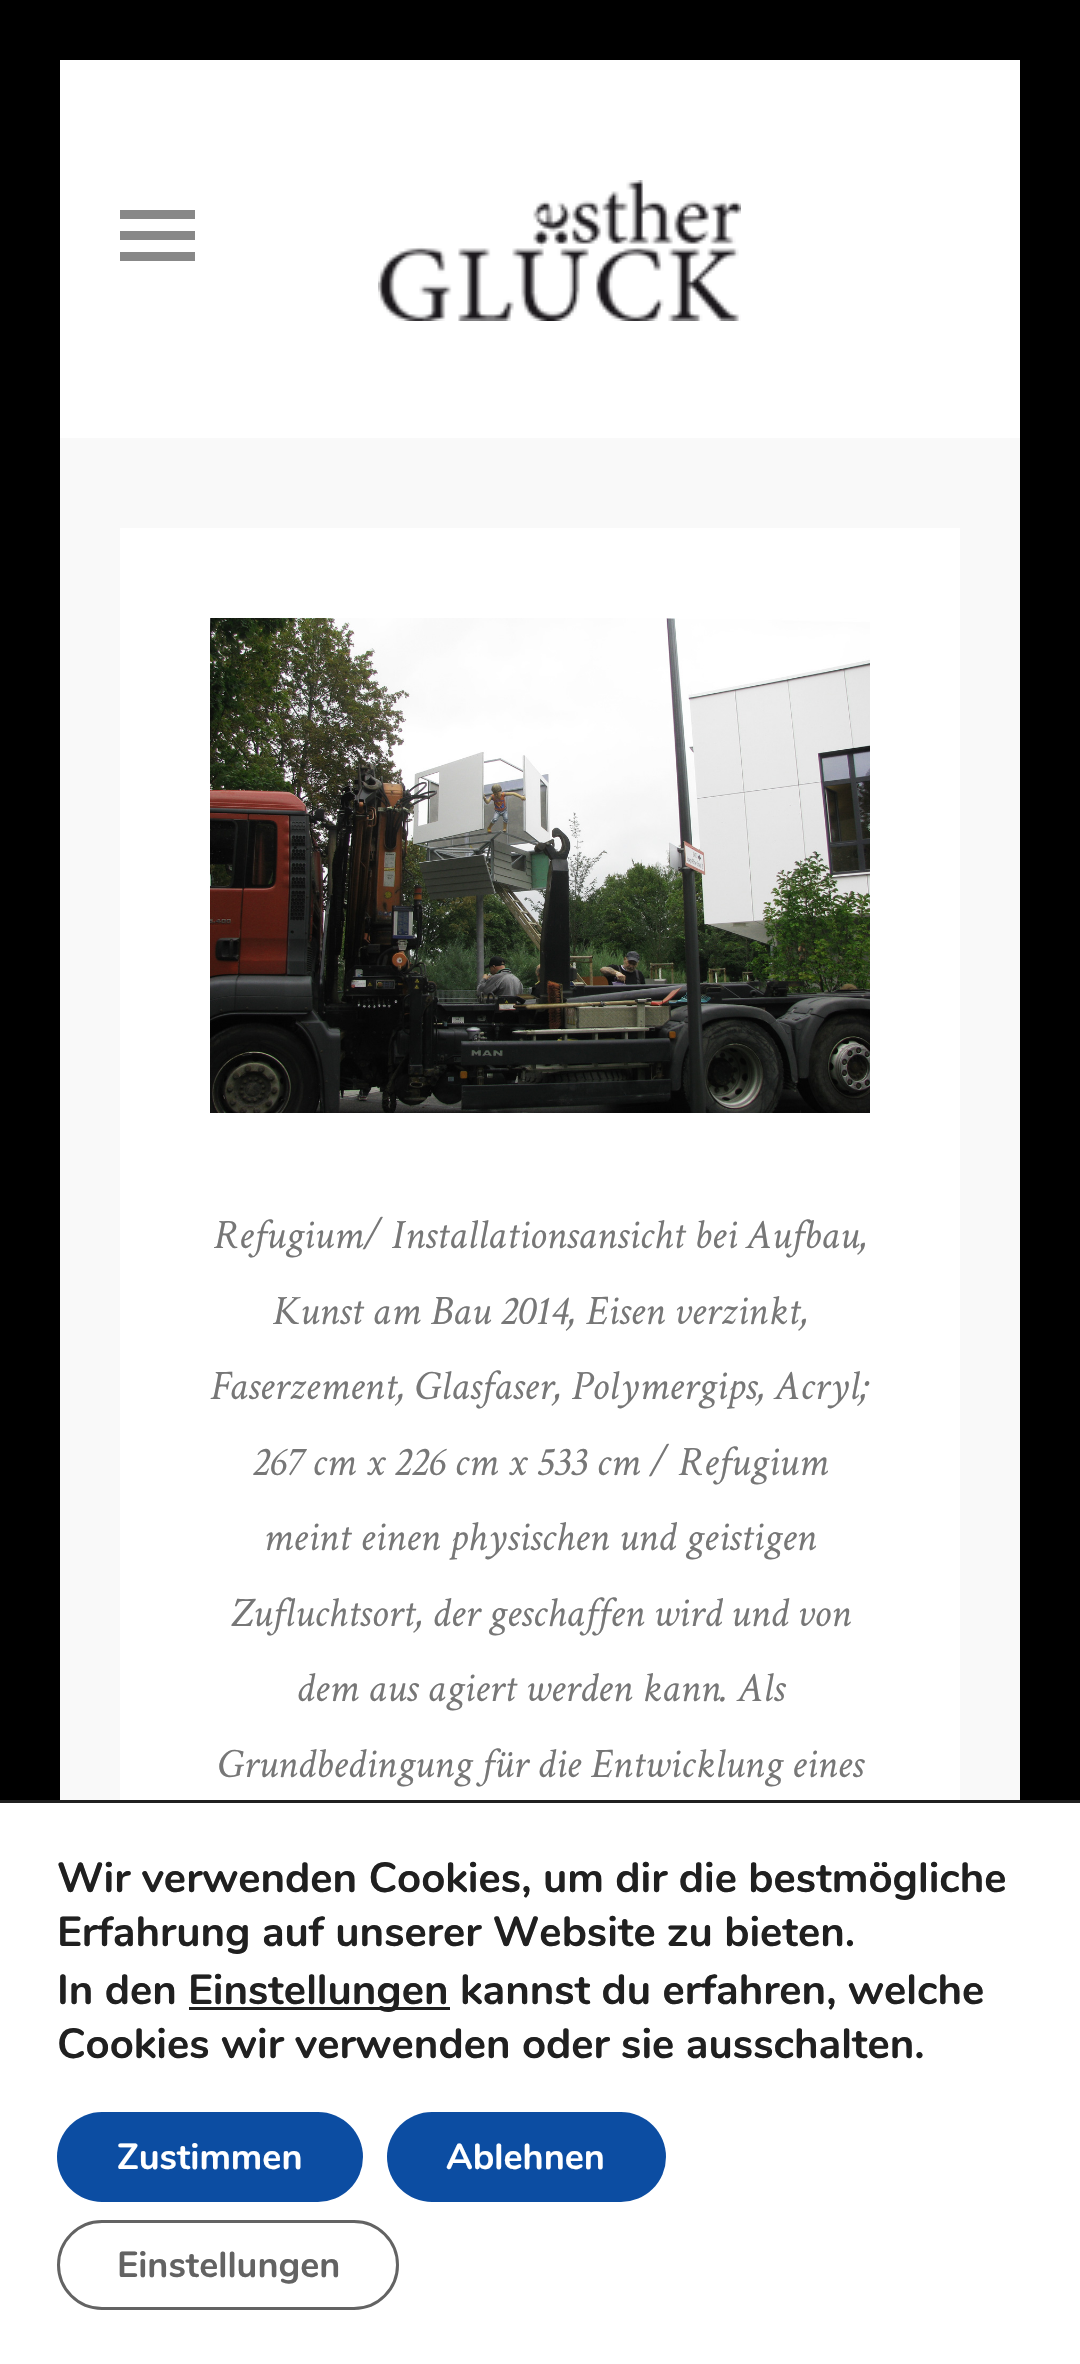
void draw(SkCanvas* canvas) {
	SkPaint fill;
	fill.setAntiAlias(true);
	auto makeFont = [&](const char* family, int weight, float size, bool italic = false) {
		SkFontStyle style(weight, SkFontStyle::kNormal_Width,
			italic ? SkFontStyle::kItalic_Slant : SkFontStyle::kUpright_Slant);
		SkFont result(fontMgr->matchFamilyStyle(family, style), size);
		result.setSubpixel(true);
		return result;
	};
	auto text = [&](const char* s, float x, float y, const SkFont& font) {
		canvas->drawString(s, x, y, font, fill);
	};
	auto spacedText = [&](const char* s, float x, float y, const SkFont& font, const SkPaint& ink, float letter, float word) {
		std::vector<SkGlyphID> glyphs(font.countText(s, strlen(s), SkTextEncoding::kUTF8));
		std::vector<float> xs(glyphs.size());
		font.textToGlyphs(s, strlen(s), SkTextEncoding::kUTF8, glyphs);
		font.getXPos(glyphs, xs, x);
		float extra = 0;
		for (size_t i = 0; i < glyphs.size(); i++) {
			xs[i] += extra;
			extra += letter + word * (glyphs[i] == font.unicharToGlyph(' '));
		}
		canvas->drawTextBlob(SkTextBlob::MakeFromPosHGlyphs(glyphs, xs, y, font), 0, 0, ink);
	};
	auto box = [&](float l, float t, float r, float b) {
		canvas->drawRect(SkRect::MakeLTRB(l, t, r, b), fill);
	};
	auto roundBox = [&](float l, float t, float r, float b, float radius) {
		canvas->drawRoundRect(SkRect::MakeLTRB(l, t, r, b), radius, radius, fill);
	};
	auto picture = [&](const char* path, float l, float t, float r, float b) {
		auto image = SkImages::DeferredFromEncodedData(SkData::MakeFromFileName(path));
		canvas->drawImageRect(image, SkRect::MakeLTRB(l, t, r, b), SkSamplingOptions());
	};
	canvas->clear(0xFFFFFFFF);
	fill.setColor(0xFF000000);
	box(0, 0, 1080, 60);
	box(0, 60, 60, 1800);
	fill.setColor(0xFF888888);
	box(120, 210, 195, 219);
	box(120, 231, 195, 240);
	box(120, 252, 195, 261);
	picture("image0.png", 378, 180, 741, 321);
	fill.setColor(0xFFF9F9F9);
	box(60, 438, 1020, 1800);
	fill.setColor(0xFFFFFFFF);
	box(120, 528, 960, 1800);
	picture("image1.png", 210, 618, 870, 1113);
	fill.setColor(0xFF000000);
	box(1020, 60, 1080, 1800);
	fill.setColor(0xFF202020);
	box(0, 1800, 1080, 1803);
	box(189, 2007, 450, 2010);
	fill.setColor(0xFF0C4DA2);
	roundBox(57, 2112, 363, 2202, 45);
	roundBox(387, 2112, 666, 2202, 45);
	fill.setStyle(SkPaint::kStroke_Style);
	fill.setStrokeWidth(3);
	fill.setColor(0xFF636363);
	canvas->drawRoundRect(SkRect::MakeLTRB(58.5f, 2221.5f, 397.5f, 2308.5f), 43.5f, 43.5f, fill);
	auto font1 = makeFont("Crimson Text", 400, 42, true);
	fill.setStyle(SkPaint::kFill_Style);
	fill.setColor(0xFF777777);
	text("Refugium/ Installationsansicht bei Aufbau,", 213, 1248, font1);
	text("Kunst am Bau 2014, Eisen verzinkt,", 272, 1324, font1);
	text("Faserzement, Glasfaser, Polymergips, Acryl;", 211, 1399, font1);
	text("267 cm x 226 cm x 533 cm / Refugium", 252, 1475, font1);
	text("meint einen physischen und geistigen", 263, 1550, font1);
	text("Zufluchtsort,", 230, 1626, font1);
	spacedText("der geschaffen wird und von", 432, 1626, font1, fill, 0, -0.5f);
	text("dem aus agiert werden kann. Als", 296, 1701, font1);
	text("Grundbedingung für die Entwicklung eines", 217, 1777, font1);
	auto font2 = makeFont("Nunito", 700, 42);
	fill.setColor(0xFF202020);
	text("Wir verwenden Cookies, um dir die bestmögliche", 57, 1892, font2);
	text("Erfahrung auf unserer Website zu bieten.", 57, 1946, font2);
	text("In den", 57, 2004, font2);
	text("Einstellungen kannst du erfahren, welche", 188, 2004, font2);
	text("Cookies wir verwenden oder sie ausschalten.", 57, 2058, font2);
	auto font3 = makeFont("Nunito", 700, 36);
	fill.setColor(0xFFFFFFFF);
	text("Zustimmen", 117, 2169, font3);
	text("Ablehnen", 446, 2169, font3);
	fill.setColor(0xFF636363);
	text("Einstellungen", 117, 2277, font3);
}
